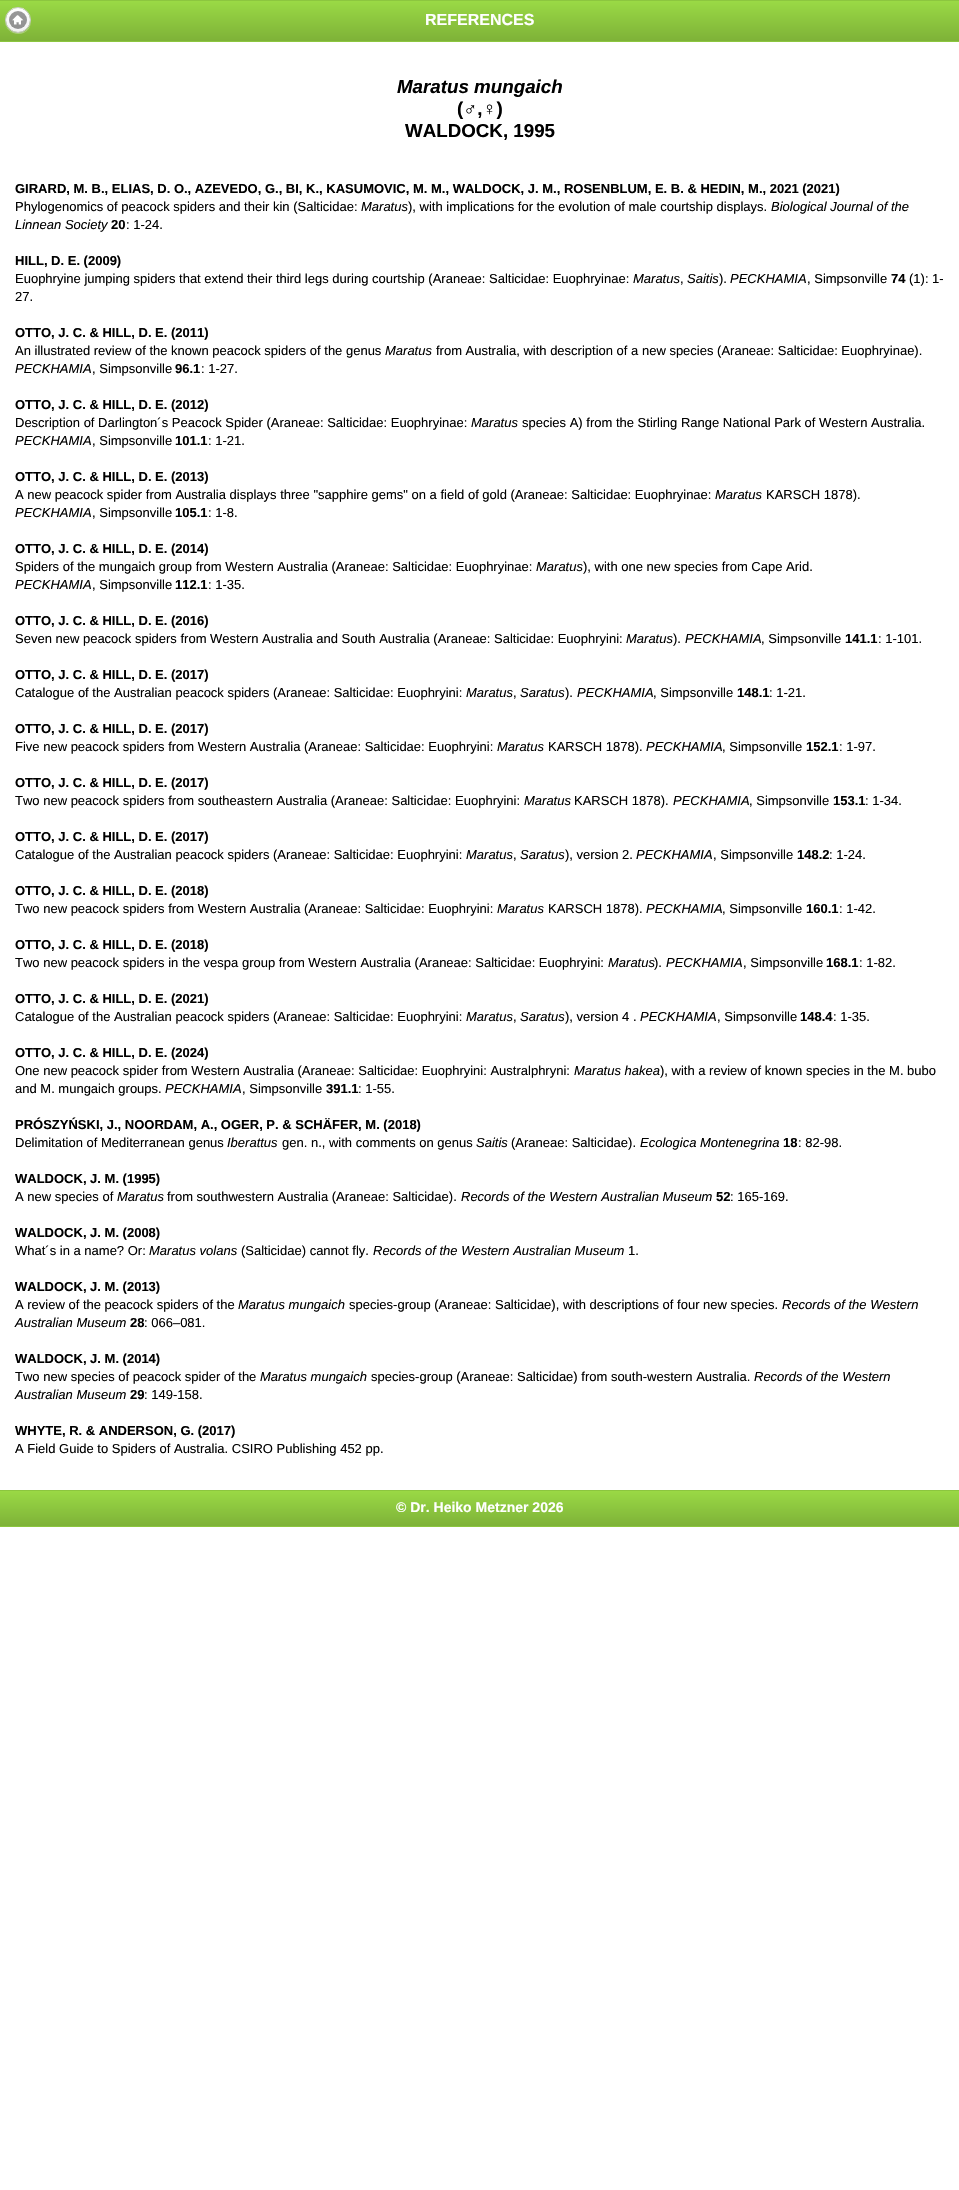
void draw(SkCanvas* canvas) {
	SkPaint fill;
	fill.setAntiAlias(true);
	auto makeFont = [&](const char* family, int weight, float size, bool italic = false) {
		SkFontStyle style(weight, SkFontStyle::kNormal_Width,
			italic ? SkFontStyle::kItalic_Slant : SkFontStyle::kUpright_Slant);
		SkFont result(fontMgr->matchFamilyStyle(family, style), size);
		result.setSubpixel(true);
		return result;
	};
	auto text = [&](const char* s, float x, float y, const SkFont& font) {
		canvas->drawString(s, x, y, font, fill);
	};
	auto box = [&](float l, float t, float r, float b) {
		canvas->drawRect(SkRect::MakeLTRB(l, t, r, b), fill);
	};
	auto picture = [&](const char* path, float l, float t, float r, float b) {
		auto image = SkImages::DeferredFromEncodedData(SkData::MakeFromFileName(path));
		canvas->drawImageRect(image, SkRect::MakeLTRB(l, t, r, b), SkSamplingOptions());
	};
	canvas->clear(0xFFFFFFFF);
	{
		const SkColor colors[] = {0xFF9AD945, 0xFF7EB238};
		const float stops[] = {0, 1};
		const SkPoint ends[] = {{480, 1}, {480, 41}};
		fill.setShader(SkGradientShader::MakeLinear(ends, colors, stops, 2, SkTileMode::kClamp));
		fill.setAlpha(255);
	}
	box(0, 1, 959, 41);
	fill.setShader(nullptr);
	fill.setColor(0xFF8CC63F);
	box(0, 0, 959, 1);
	box(0, 41, 959, 42);
	fill.setColor(0x4DFFFFFF);
	canvas->drawPath(SkPathBuilder().moveTo(5, 20.5f).cubicTo(4.5f, 33.5f, 21.5f, 39, 29, 28.5f).cubicTo(30.5f, 26, 31, 23, 31, 20.5f).cubicTo(30.5f, 37, 5.5f, 37, 5, 20.5f).close().detach(), fill);
	{
		const SkColor colors[] = {0xFFFFFFFF, 0xFFF1F1F1};
		const float stops[] = {0, 1};
		const SkPoint ends[] = {{18, 8}, {18, 32}};
		fill.setShader(SkGradientShader::MakeLinear(ends, colors, stops, 2, SkTileMode::kClamp));
		fill.setAlpha(255);
	}
	canvas->drawCircle(18, 20, 12, fill);
	fill.setStyle(SkPaint::kStroke_Style);
	fill.setStrokeWidth(1);
	fill.setShader(nullptr);
	fill.setColor(0xFFCCCCCC);
	canvas->drawCircle(18, 20, 12.5f, fill);
	fill.setStyle(SkPaint::kFill_Style);
	fill.setColor(0x4DFFFFFF);
	box(12, 8, 24, 9);
	fill.setColor(0x66FFFFFF);
	canvas->drawPath(SkPathBuilder().moveTo(9, 20.5f).cubicTo(8.5f, 33, 27.5f, 33, 27, 20.5f).cubicTo(26.5f, 31.5f, 9.5f, 31.5f, 9, 20.5f).close().detach(), fill);
	fill.setColor(0x66000000);
	canvas->drawCircle(18, 20, 9, fill);
	picture("image0.png", 12, 15, 24, 25);
	{
		const SkColor colors[] = {0xFF9AD945, 0xFF7EB238};
		const float stops[] = {0, 1};
		const SkPoint ends[] = {{480, 1491}, {480, 1526}};
		fill.setShader(SkGradientShader::MakeLinear(ends, colors, stops, 2, SkTileMode::kClamp));
		fill.setAlpha(255);
	}
	box(0, 1491, 959, 1526);
	fill.setShader(nullptr);
	fill.setColor(0xFF8CC63F);
	box(0, 1490, 959, 1491);
	box(0, 1526, 959, 1527);
	auto font1 = makeFont("Liberation Sans", 700, 16);
	fill.setColor(0xFFFFFFFF);
	text("REFERENCES", 425, 25, font1);
	auto font2 = makeFont("Liberation Sans", 700, 18.75f, true);
	fill.setColor(0xFF000000);
	text("Maratus mungaich", 397, 93, font2);
	auto font3 = makeFont("Liberation Sans", 700, 18.75f);
	text("(♂,♀)", 457, 115, font3);
	text("WALDOCK, 1995", 405, 137, font3);
	auto font4 = makeFont("Liberation Sans", 700, 13);
	text("GIRARD, M. B., ELIAS, D. O., AZEVEDO, G., BI, K., KASUMOVIC, M. M., WALDOCK, J. M., ROSENBLUM, E. B. & HEDIN, M., 2021 (2021)", 15, 193, font4);
	auto font5 = makeFont("Liberation Sans", 400, 13);
	text("Phylogenomics of peacock spiders and their kin (Salticidae:", 15, 211, font5);
	auto font6 = makeFont("Liberation Sans", 400, 13, true);
	text("Maratus", 361, 211, font6);
	text("), with implications for the evolution of male courtship displays.", 408, 211, font5);
	text("Biological Journal of the", 771, 211, font6);
	text("Linnean Society", 15, 229, font6);
	text("20", 111, 229, font4);
	text(": 1-24.", 126, 229, font5);
	text("HILL, D. E. (2009)", 15, 265, font4);
	text("Euophryine jumping spiders that extend their third legs during courtship (Araneae: Salticidae: Euophryinae:", 15, 283, font5);
	text("Maratus", 633, 283, font6);
	text(",", 680, 283, font5);
	text("Saitis", 687, 283, font6);
	text(").", 719, 283, font5);
	text("PECKHAMIA", 730, 283, font6);
	text(", Simpsonville", 807, 283, font5);
	text("74", 891, 283, font4);
	text("(1): 1-", 909, 283, font5);
	text("27.", 15, 301, font5);
	text("OTTO, J. C. & HILL, D. E. (2011)", 15, 337, font4);
	text("An illustrated review of the known peacock spiders of the genus", 15, 355, font5);
	text("Maratus", 385, 355, font6);
	text("from Australia, with description of a new species (Araneae: Salticidae: Euophryinae).", 436, 355, font5);
	text("PECKHAMIA", 15, 373, font6);
	text(", Simpsonville", 92, 373, font5);
	text("96.1", 175, 373, font4);
	text(": 1-27.", 201, 373, font5);
	text("OTTO, J. C. & HILL, D. E. (2012)", 15, 409, font4);
	text("Description of Darlington´s Peacock Spider (Araneae: Salticidae: Euophryinae:", 15, 427, font5);
	text("Maratus", 471, 427, font6);
	text("species A) from the Stirling Range National Park of Western Australia.", 522, 427, font5);
	text("PECKHAMIA", 15, 445, font6);
	text(", Simpsonville", 92, 445, font5);
	text("101.1", 175, 445, font4);
	text(": 1-21.", 208, 445, font5);
	text("OTTO, J. C. & HILL, D. E. (2013)", 15, 481, font4);
	text("A new peacock spider from Australia displays three \"sapphire gems\" on a field of gold (Araneae: Salticidae: Euophryinae:", 15, 499, font5);
	text("Maratus", 715, 499, font6);
	text("KARSCH 1878).", 766, 499, font5);
	text("PECKHAMIA", 15, 517, font6);
	text(", Simpsonville", 92, 517, font5);
	text("105.1", 175, 517, font4);
	text(": 1-8.", 208, 517, font5);
	text("OTTO, J. C. & HILL, D. E. (2014)", 15, 553, font4);
	text("Spiders of the mungaich group from Western Australia (Araneae: Salticidae: Euophryinae:", 15, 571, font5);
	text("Maratus", 536, 571, font6);
	text("), with one new species from Cape Arid.", 583, 571, font5);
	text("PECKHAMIA", 15, 589, font6);
	text(", Simpsonville", 92, 589, font5);
	text("112.1", 175, 589, font4);
	text(": 1-35.", 208, 589, font5);
	text("OTTO, J. C. & HILL, D. E. (2016)", 15, 625, font4);
	text("Seven new peacock spiders from Western Australia and South Australia (Araneae: Salticidae: Euophryini:", 15, 643, font5);
	text("Maratus", 626, 643, font6);
	text(").", 673, 643, font5);
	text("PECKHAMIA", 685, 643, font6);
	text(", Simpsonville", 761, 643, font5);
	text("141.1", 845, 643, font4);
	text(": 1-101.", 878, 643, font5);
	text("OTTO, J. C. & HILL, D. E. (2017)", 15, 679, font4);
	text("Catalogue of the Australian peacock spiders (Araneae: Salticidae: Euophryini:", 15, 697, font5);
	text("Maratus", 466, 697, font6);
	text(",", 513, 697, font5);
	text("Saratus", 520, 697, font6);
	text(").", 565, 697, font5);
	text("PECKHAMIA", 577, 697, font6);
	text(", Simpsonville", 653, 697, font5);
	text("148.1", 737, 697, font4);
	text(": 1-21.", 769, 697, font5);
	text("OTTO, J. C. & HILL, D. E. (2017)", 15, 733, font4);
	text("Five new peacock spiders from Western Australia (Araneae: Salticidae: Euophryini:", 15, 751, font5);
	text("Maratus", 497, 751, font6);
	text("KARSCH 1878).", 548, 751, font5);
	text("PECKHAMIA", 646, 751, font6);
	text(", Simpsonville", 722, 751, font5);
	text("152.1", 806, 751, font4);
	text(": 1-97.", 839, 751, font5);
	text("OTTO, J. C. & HILL, D. E. (2017)", 15, 787, font4);
	text("Two new peacock spiders from southeastern Australia (Araneae: Salticidae: Euophryini:", 15, 805, font5);
	text("Maratus", 524, 805, font6);
	text("KARSCH 1878).", 574, 805, font5);
	text("PECKHAMIA", 673, 805, font6);
	text(", Simpsonville", 749, 805, font5);
	text("153.1", 833, 805, font4);
	text(": 1-34.", 865, 805, font5);
	text("OTTO, J. C. & HILL, D. E. (2017)", 15, 841, font4);
	text("Catalogue of the Australian peacock spiders (Araneae: Salticidae: Euophryini:", 15, 859, font5);
	text("Maratus", 466, 859, font6);
	text(",", 513, 859, font5);
	text("Saratus", 520, 859, font6);
	text("), version 2.", 565, 859, font5);
	text("PECKHAMIA", 636, 859, font6);
	text(", Simpsonville", 713, 859, font5);
	text("148.2", 797, 859, font4);
	text(": 1-24.", 829, 859, font5);
	text("OTTO, J. C. & HILL, D. E. (2018)", 15, 895, font4);
	text("Two new peacock spiders from Western Australia (Araneae: Salticidae: Euophryini:", 15, 913, font5);
	text("Maratus", 497, 913, font6);
	text("KARSCH 1878).", 548, 913, font5);
	text("PECKHAMIA", 646, 913, font6);
	text(", Simpsonville", 722, 913, font5);
	text("160.1", 806, 913, font4);
	text(": 1-42.", 839, 913, font5);
	text("OTTO, J. C. & HILL, D. E. (2018)", 15, 949, font4);
	text("Two new peacock spiders in the vespa group from Western Australia (Araneae: Salticidae: Euophryini:", 15, 967, font5);
	text("Maratus", 608, 967, font6);
	text(").", 654, 967, font5);
	text("PECKHAMIA", 666, 967, font6);
	text(", Simpsonville", 743, 967, font5);
	text("168.1", 826, 967, font4);
	text(": 1-82.", 859, 967, font5);
	text("OTTO, J. C. & HILL, D. E. (2021)", 15, 1003, font4);
	text("Catalogue of the Australian peacock spiders (Araneae: Salticidae: Euophryini:", 15, 1021, font5);
	text("Maratus", 466, 1021, font6);
	text(",", 513, 1021, font5);
	text("Saratus", 520, 1021, font6);
	text("), version 4 .", 565, 1021, font5);
	text("PECKHAMIA", 640, 1021, font6);
	text(", Simpsonville", 717, 1021, font5);
	text("148.4", 800, 1021, font4);
	text(": 1-35.", 833, 1021, font5);
	text("OTTO, J. C. & HILL, D. E. (2024)", 15, 1057, font4);
	text("One new peacock spider from Western Australia (Araneae: Salticidae: Euophryini: Australphryni:", 15, 1075, font5);
	text("Maratus hakea", 574, 1075, font6);
	text("), with a review of known species in the M. bubo", 660, 1075, font5);
	text("and M. mungaich groups.", 15, 1093, font5);
	text("PECKHAMIA", 165, 1093, font6);
	text(", Simpsonville", 242, 1093, font5);
	text("391.1", 326, 1093, font4);
	text(": 1-55.", 358, 1093, font5);
	text("PRÓSZYŃSKI, J., NOORDAM, A., OGER, P. & SCHÄFER, M. (2018)", 15, 1129, font4);
	text("Delimitation of Mediterranean genus", 15, 1147, font5);
	text("Iberattus", 227, 1147, font6);
	text("gen. n., with comments on genus", 282, 1147, font5);
	text("Saitis", 476, 1147, font6);
	text("(Araneae: Salticidae).", 511, 1147, font5);
	text("Ecologica Montenegrina", 640, 1147, font6);
	text("18", 783, 1147, font4);
	text(": 82-98.", 798, 1147, font5);
	text("WALDOCK, J. M. (1995)", 15, 1183, font4);
	text("A new species of", 15, 1201, font5);
	text("Maratus", 117, 1201, font6);
	text("from southwestern Australia (Araneae: Salticidae).", 167, 1201, font5);
	text("Records of the Western Australian Museum", 461, 1201, font6);
	text("52", 716, 1201, font4);
	text(": 165-169.", 730, 1201, font5);
	text("WALDOCK, J. M. (2008)", 15, 1237, font4);
	text("What´s in a name? Or:", 15, 1255, font5);
	text("Maratus volans", 149, 1255, font6);
	text("(Salticidae) cannot fly.", 241, 1255, font5);
	text("Records of the Western Australian Museum", 373, 1255, font6);
	text("1.", 628, 1255, font5);
	text("WALDOCK, J. M. (2013)", 15, 1291, font4);
	text("A review of the peacock spiders of the", 15, 1309, font5);
	text("Maratus mungaich", 238, 1309, font6);
	text("species-group (Araneae: Salticidae), with descriptions of four new species.", 349, 1309, font5);
	text("Records of the Western", 782, 1309, font6);
	text("Australian Museum", 15, 1327, font6);
	text("28", 130, 1327, font4);
	text(": 066–081.", 144, 1327, font5);
	text("WALDOCK, J. M. (2014)", 15, 1363, font4);
	text("Two new species of peacock spider of the", 15, 1381, font5);
	text("Maratus mungaich", 260, 1381, font6);
	text("species-group (Araneae: Salticidae) from south-western Australia.", 371, 1381, font5);
	text("Records of the Western", 754, 1381, font6);
	text("Australian Museum", 15, 1399, font6);
	text("29", 130, 1399, font4);
	text(": 149-158.", 144, 1399, font5);
	text("WHYTE, R. & ANDERSON, G. (2017)", 15, 1435, font4);
	text("A Field Guide to Spiders of Australia. CSIRO Publishing 452 pp.", 15, 1453, font5);
	auto font7 = makeFont("Liberation Sans", 700, 14);
	fill.setColor(0xFFFFFFFF);
	text("© Dr. Heiko Metzner 2026", 396, 1512, font7);
}
